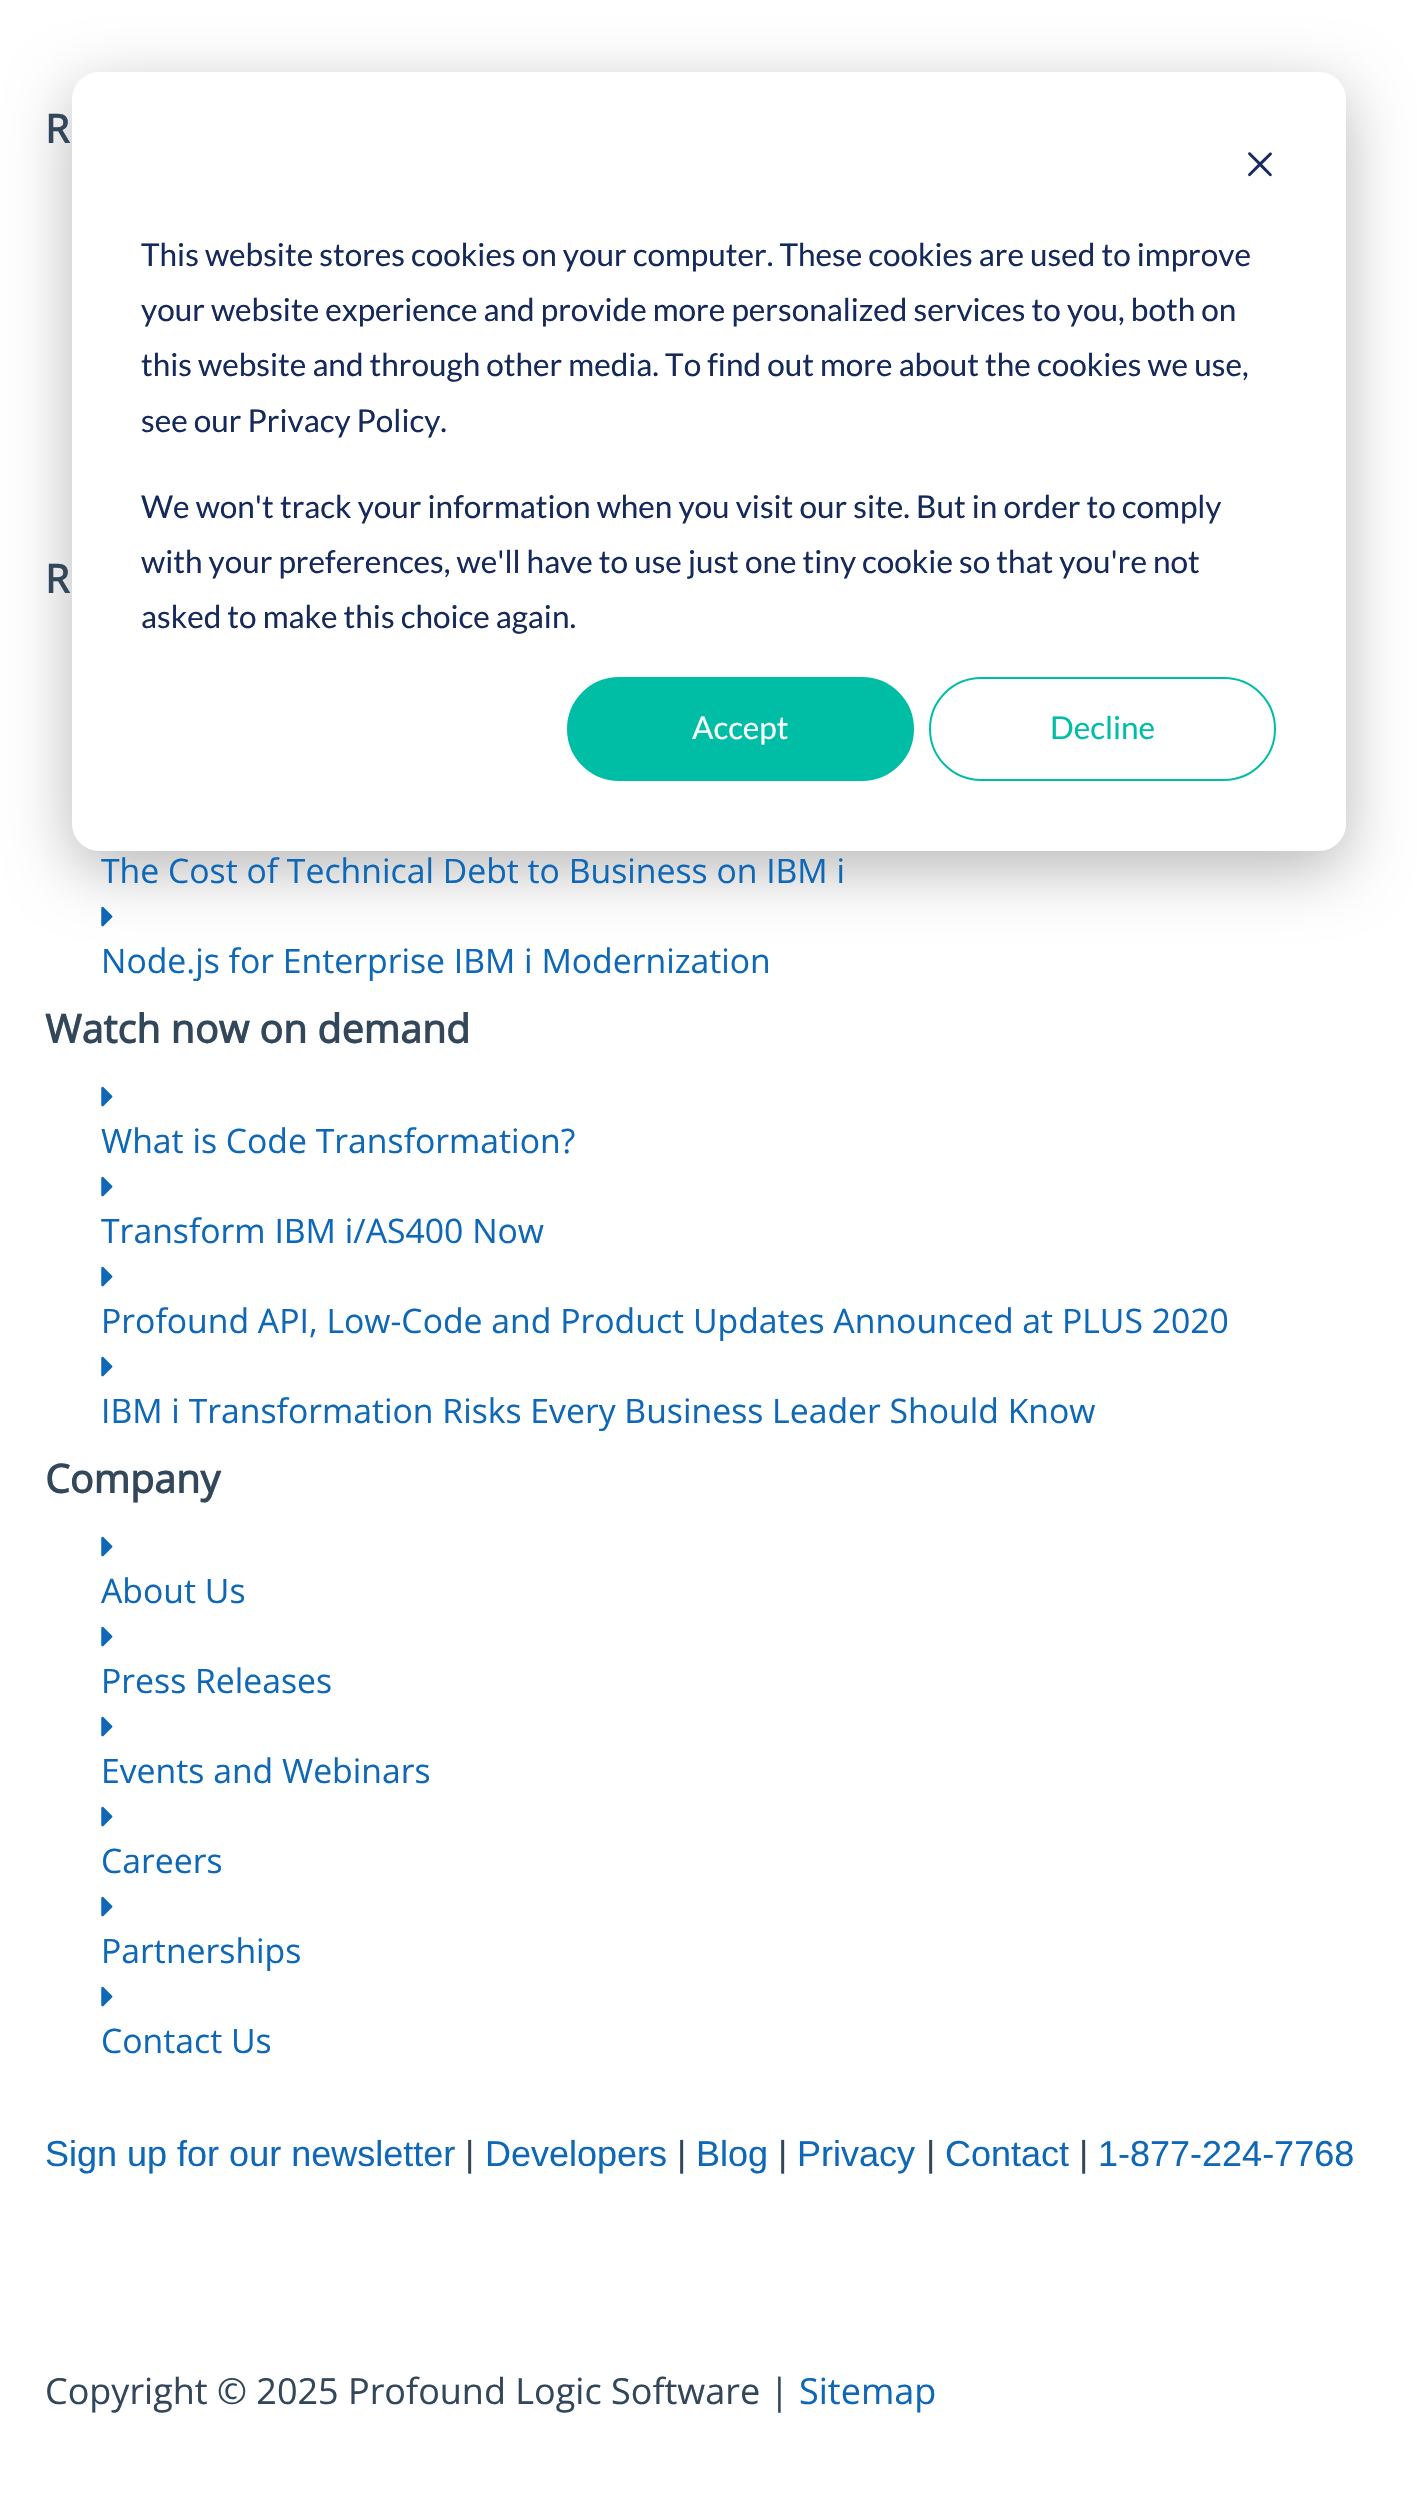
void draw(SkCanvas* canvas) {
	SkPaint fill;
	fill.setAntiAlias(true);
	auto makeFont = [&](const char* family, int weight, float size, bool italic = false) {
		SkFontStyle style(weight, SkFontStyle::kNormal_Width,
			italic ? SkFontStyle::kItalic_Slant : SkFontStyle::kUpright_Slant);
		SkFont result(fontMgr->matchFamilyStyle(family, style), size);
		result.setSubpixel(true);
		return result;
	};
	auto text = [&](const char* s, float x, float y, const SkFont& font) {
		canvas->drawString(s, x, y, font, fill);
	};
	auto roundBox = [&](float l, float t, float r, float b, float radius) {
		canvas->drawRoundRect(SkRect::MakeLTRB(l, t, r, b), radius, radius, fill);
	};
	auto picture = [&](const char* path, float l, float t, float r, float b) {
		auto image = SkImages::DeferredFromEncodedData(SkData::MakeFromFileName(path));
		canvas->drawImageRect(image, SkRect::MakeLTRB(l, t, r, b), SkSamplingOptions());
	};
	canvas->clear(0xFFFFFFFF);
	picture("image0.png", 101, 906, 113, 927);
	picture("image0.png", 101, 1086, 113, 1107);
	picture("image0.png", 101, 1176, 113, 1197);
	picture("image0.png", 101, 1266, 113, 1287);
	picture("image0.png", 101, 1356, 113, 1377);
	picture("image0.png", 101, 1536, 113, 1557);
	picture("image0.png", 101, 1626, 113, 1647);
	picture("image0.png", 101, 1716, 113, 1737);
	picture("image0.png", 101, 1806, 113, 1827);
	picture("image0.png", 101, 1896, 113, 1917);
	picture("image0.png", 101, 1986, 113, 2007);
	fill.setColor(0x47000000);
	fill.setMaskFilter(SkMaskFilter::MakeBlur(kNormal_SkBlurStyle, 31.5f));
	canvas->drawRoundRect(SkRect::MakeLTRB(72, 90, 1346, 869), 27, 27, fill);
	fill.setMaskFilter(nullptr);
	fill.setColor(0xFFFFFFFF);
	roundBox(72, 72, 1346, 851, 27);
	picture("image1.png", 1248, 152, 1272, 177);
	fill.setColor(0xFF00BDA5);
	canvas->drawRoundRect(SkRect::MakeLTRB(568, 678, 913, 780), 51, 51, fill);
	fill.setStyle(SkPaint::kStroke_Style);
	fill.setStrokeWidth(2);
	canvas->drawRoundRect(SkRect::MakeLTRB(568, 678, 913, 780), 51, 51, fill);
	canvas->drawRoundRect(SkRect::MakeLTRB(930, 678, 1275, 780), 51, 51, fill);
	auto font1 = makeFont("Open Sans", 700, 39.4f);
	fill.setStyle(SkPaint::kFill_Style);
	fill.setColor(0xFF33475B);
	text("R", 45, 143, font1);
	text("R", 45, 593, font1);
	auto font2 = makeFont("Open Sans", 400, 33.75f);
	fill.setColor(0xFF0E68B7);
	text("The Cost of Technical Debt to Business on IBM i", 101, 883, font2);
	text("Node.js for Enterprise IBM i Modernization", 101, 973, font2);
	fill.setColor(0xFF33475B);
	text("Watch now on demand", 45, 1043, font1);
	fill.setColor(0xFF0E68B7);
	text("What is Code Transformation?", 101, 1153, font2);
	text("Transform IBM i/AS400 Now", 101, 1243, font2);
	text("Profound API, Low-Code and Product Updates Announced at PLUS 2020", 101, 1333, font2);
	text("IBM i Transformation Risks Every Business Leader Should Know", 101, 1423, font2);
	fill.setColor(0xFF33475B);
	text("Company", 45, 1493, font1);
	fill.setColor(0xFF0E68B7);
	text("About Us", 101, 1603, font2);
	text("Press Releases", 101, 1693, font2);
	text("Events and Webinars", 101, 1783, font2);
	text("Careers", 101, 1873, font2);
	text("Partnerships", 101, 1963, font2);
	text("Contact Us", 101, 2053, font2);
	auto font3 = makeFont("Liberation Sans", 400, 36);
	text("Sign up for our newsletter", 45, 2166, font3);
	fill.setColor(0xFF33475B);
	text("|", 465, 2166, font3);
	fill.setColor(0xFF0E68B7);
	text("Developers", 485, 2166, font3);
	fill.setColor(0xFF33475B);
	text("|", 677, 2166, font3);
	fill.setColor(0xFF0E68B7);
	text("Blog", 696, 2166, font3);
	fill.setColor(0xFF33475B);
	text("|", 778, 2166, font3);
	fill.setColor(0xFF0E68B7);
	text("Privacy", 797, 2166, font3);
	fill.setColor(0xFF33475B);
	text("|", 926, 2166, font3);
	fill.setColor(0xFF0E68B7);
	text("Contact", 945, 2166, font3);
	fill.setColor(0xFF33475B);
	text("|", 1079, 2166, font3);
	fill.setColor(0xFF0E68B7);
	text("1-877-224-7768", 1098, 2166, font3);
	auto font4 = makeFont("Open Sans", 400, 36);
	fill.setColor(0xFF33475B);
	text("Copyright © 2025 Profound Logic Software |", 45, 2404, font4);
	fill.setColor(0xFF0E68B7);
	text("Sitemap", 799, 2404, font4);
	auto font5 = makeFont("Lato", 400, 31.5f);
	fill.setColor(0xFF15295A);
	text("This website stores cookies on your computer. These cookies are used to improve", 141, 266, font5);
	text("your website experience and provide more personalized services to you, both on", 141, 321, font5);
	text("this website and through other media. To find out more about the cookies we use,", 141, 376, font5);
	text("see our Privacy Policy.", 141, 432, font5);
	text("We won't track your information when you visit our site. But in order to comply", 141, 518, font5);
	text("with your preferences, we'll have to use just one tiny cookie so that you're not", 141, 573, font5);
	text("asked to make this choice again.", 141, 628, font5);
	fill.setColor(0xFFFFFFFF);
	text("Accept", 692, 739, font5);
	fill.setColor(0xFF00BDA5);
	text("Decline", 1050, 739, font5);
}
